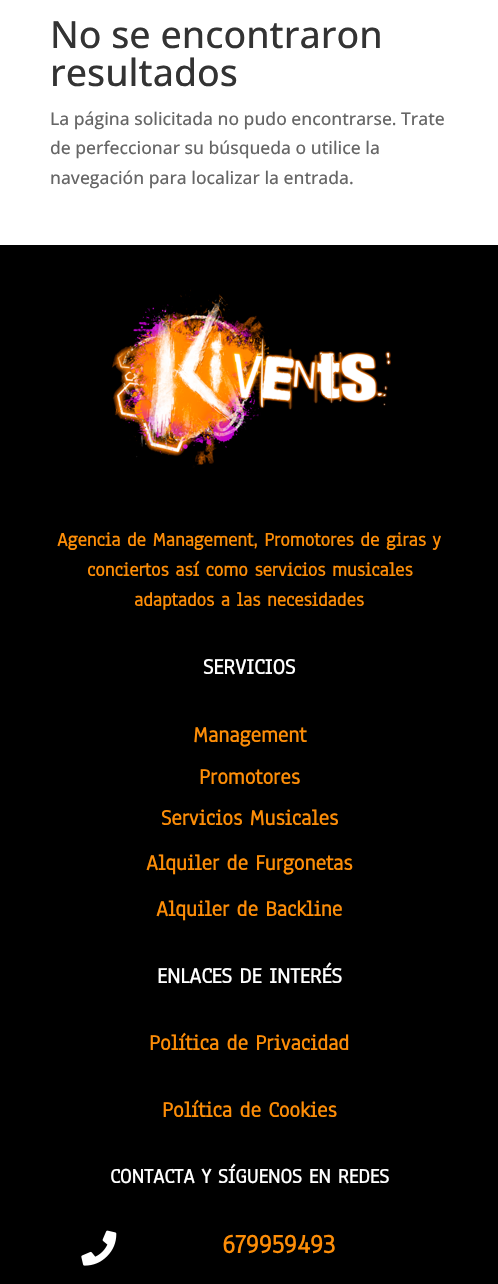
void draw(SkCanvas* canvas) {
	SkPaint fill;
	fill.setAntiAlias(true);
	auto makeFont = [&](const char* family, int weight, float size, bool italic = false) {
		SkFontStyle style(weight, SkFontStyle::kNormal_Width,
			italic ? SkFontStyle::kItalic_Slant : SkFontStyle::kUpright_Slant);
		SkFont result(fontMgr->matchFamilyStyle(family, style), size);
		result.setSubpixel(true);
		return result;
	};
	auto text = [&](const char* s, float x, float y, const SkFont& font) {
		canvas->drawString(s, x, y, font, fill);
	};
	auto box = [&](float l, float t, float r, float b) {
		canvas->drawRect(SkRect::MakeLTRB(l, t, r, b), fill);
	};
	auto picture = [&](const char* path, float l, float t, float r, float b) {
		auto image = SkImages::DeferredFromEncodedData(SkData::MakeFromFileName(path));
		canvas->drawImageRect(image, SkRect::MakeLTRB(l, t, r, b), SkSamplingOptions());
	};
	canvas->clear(0xFFFFFFFF);
	fill.setColor(0xFF000000);
	box(0, 245, 498, 1284);
	picture("image0.png", 111, 289, 392, 468);
	picture("image1.png", 81, 1230, 117, 1266);
	auto font1 = makeFont("Open Sans", 500, 37.5f);
	fill.setColor(0xFF333333);
	text("No se encontraron", 50, 48, font1);
	text("resultados", 50, 86, font1);
	auto font2 = makeFont("Open Sans", 500, 17.5f);
	fill.setColor(0xFF666666);
	text("La página solicitada no pudo encontrarse. Trate", 50, 125, font2);
	text("de perfeccionar su búsqueda o utilice la", 50, 154, font2);
	text("navegación para localizar la entrada.", 50, 184, font2);
	auto font3 = makeFont("Anaheim", 700, 20);
	fill.setColor(0xFFFD8D07);
	text("Agencia de Management, Promotores de giras y", 57, 546, font3);
	text("conciertos así como servicios musicales", 87, 576, font3);
	text("adaptados a las necesidades", 134, 606, font3);
	auto font4 = makeFont("Anaheim", 700, 22.5f);
	fill.setColor(0xFFFFFFFF);
	text("SERVICIOS", 203, 674, font4);
	fill.setColor(0xFFFD8D07);
	text("Management", 193, 742, font4);
	text("Promotores", 199, 784, font4);
	text("Servicios Musicales", 161, 825, font4);
	text("Alquiler de Furgonetas", 146, 870, font4);
	text("Alquiler de Backline", 156, 916, font4);
	fill.setColor(0xFFFFFFFF);
	text("ENLACES DE INTERÉS", 157, 983, font4);
	fill.setColor(0xFFFD8D07);
	text("Política de Privacidad", 149, 1050, font4);
	text("Política de Cookies", 162, 1117, font4);
	auto font5 = makeFont("Anaheim", 700, 21.25f);
	fill.setColor(0xFFFFFFFF);
	text("CONTACTA Y SÍGUENOS EN REDES", 110, 1183, font5);
	auto font6 = makeFont("Anaheim", 700, 27.5f);
	fill.setColor(0xFFFD8D07);
	text("679959493", 222, 1253, font6);
}
